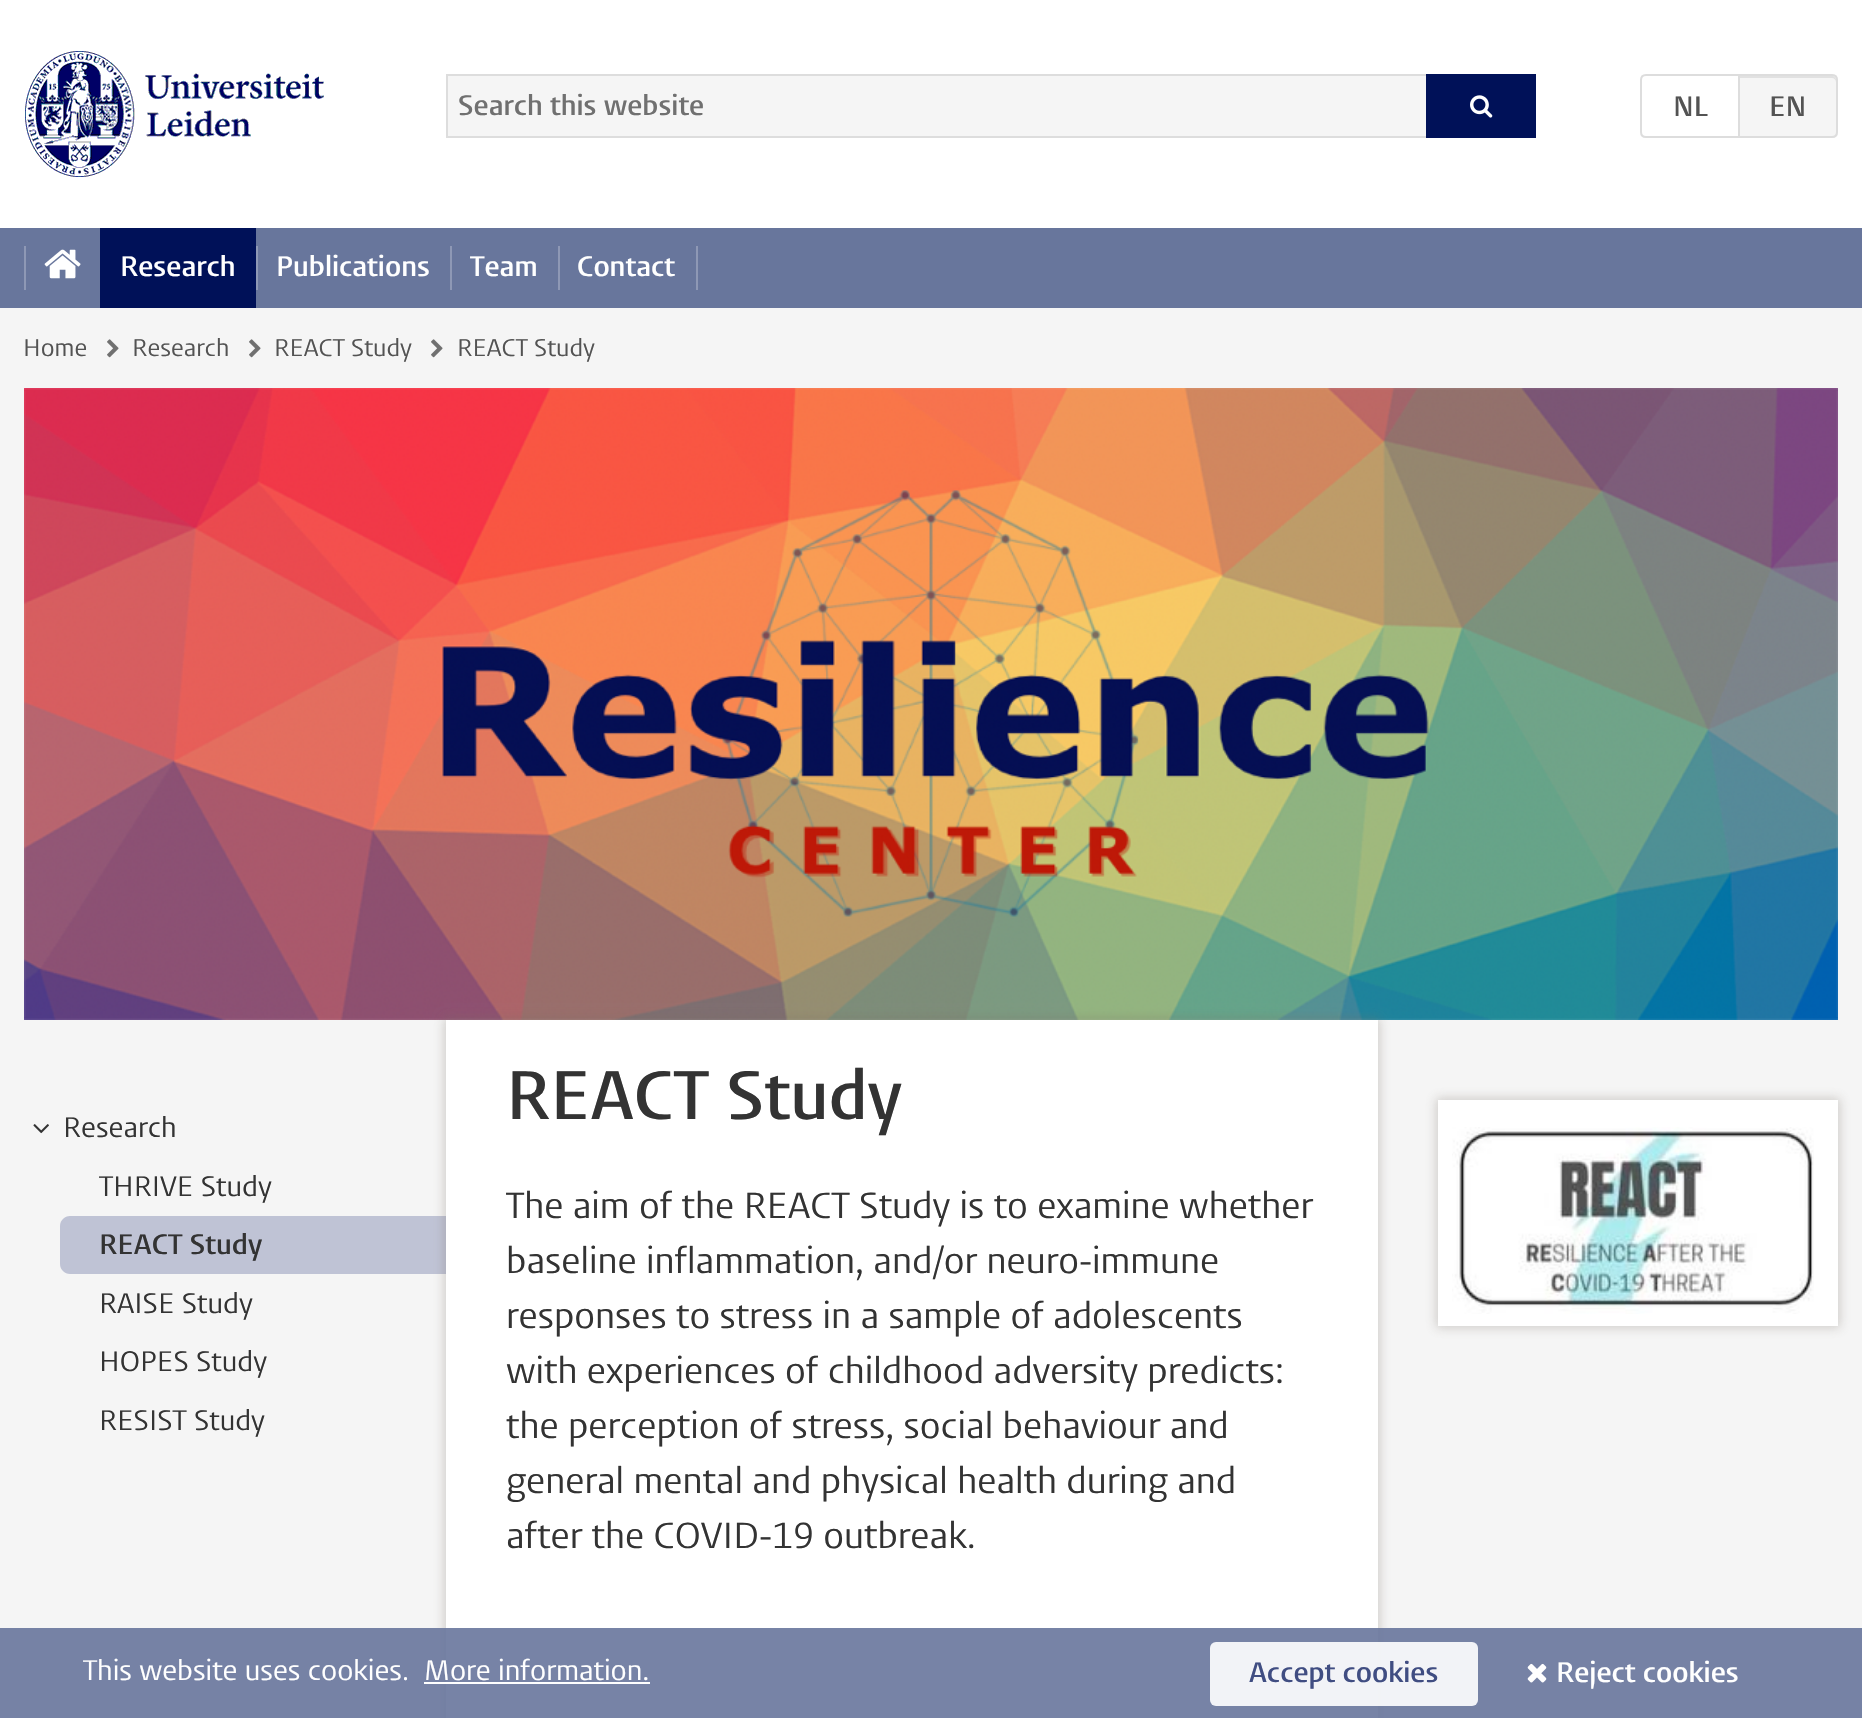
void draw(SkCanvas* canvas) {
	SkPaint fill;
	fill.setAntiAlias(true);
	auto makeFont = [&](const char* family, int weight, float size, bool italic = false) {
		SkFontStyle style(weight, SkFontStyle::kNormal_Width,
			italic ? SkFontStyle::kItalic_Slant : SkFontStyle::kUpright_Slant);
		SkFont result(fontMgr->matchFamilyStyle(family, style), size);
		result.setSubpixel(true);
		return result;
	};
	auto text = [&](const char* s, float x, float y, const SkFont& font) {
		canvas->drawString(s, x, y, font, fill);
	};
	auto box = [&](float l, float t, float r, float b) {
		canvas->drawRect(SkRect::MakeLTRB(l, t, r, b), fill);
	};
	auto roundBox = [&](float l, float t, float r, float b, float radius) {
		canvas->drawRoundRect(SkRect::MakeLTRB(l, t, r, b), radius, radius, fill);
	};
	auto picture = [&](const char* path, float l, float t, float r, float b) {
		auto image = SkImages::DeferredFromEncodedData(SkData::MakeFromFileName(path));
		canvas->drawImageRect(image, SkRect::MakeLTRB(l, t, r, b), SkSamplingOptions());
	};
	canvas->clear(0xFFF5F5F5);
	fill.setColor(0xFFFFFFFF);
	box(0, 0, 1862, 228);
	picture("image0.png", 25, 51, 324, 177);
	fill.setColor(0xFFF5F5F5);
	box(448, 76, 1426, 136);
	fill.setColor(0xFFDDDDDD);
	box(446, 74, 1426, 76);
	box(446, 136, 1426, 138);
	box(446, 74, 448, 138);
	fill.setColor(0xFF001158);
	box(1426, 74, 1536, 138);
	picture("image1.png", 1470, 95, 1493, 118);
	fill.setStyle(SkPaint::kStroke_Style);
	fill.setStrokeWidth(2);
	fill.setColor(0xFFDDDDDD);
	canvas->drawPath(SkPathBuilder().moveTo(1646, 75).lineTo(1739, 75).lineTo(1739, 137).lineTo(1646, 137).cubicTo(1643, 137, 1641, 135, 1641, 132).lineTo(1641, 80).cubicTo(1641, 77, 1643, 75, 1646, 75).close().detach(), fill);
	fill.setStyle(SkPaint::kFill_Style);
	fill.setColor(0xFFF5F5F5);
	canvas->drawPath(SkPathBuilder().moveTo(1738, 74).lineTo(1832, 74).cubicTo(1835.5f, 74, 1838, 76.5f, 1838, 80).lineTo(1838, 132).cubicTo(1838, 135.5f, 1835.5f, 138, 1832, 138).lineTo(1738, 138).close().detach(), fill);
	fill.setColor(0xFFE1E1E1);
	canvas->drawPath(SkPathBuilder().moveTo(1740, 78).lineTo(1832, 78).cubicTo(1834, 78, 1836, 80, 1836, 82).lineTo(1836, 80).cubicTo(1836, 78, 1834, 76, 1832, 76).lineTo(1740, 76).close().detach(), fill);
	fill.setStyle(SkPaint::kStroke_Style);
	fill.setColor(0xFFDDDDDD);
	canvas->drawPath(SkPathBuilder().moveTo(1739, 75).lineTo(1832, 75).cubicTo(1835, 75, 1837, 77, 1837, 80).lineTo(1837, 132).cubicTo(1837, 135, 1835, 137, 1832, 137).lineTo(1739, 137).close().detach(), fill);
	fill.setStyle(SkPaint::kFill_Style);
	fill.setColor(0xFF68769C);
	box(0, 228, 1862, 308);
	fill.setColor(0xFF8E98B5);
	box(24, 246, 26, 290);
	picture("image2.png", 44, 249, 81, 279);
	fill.setColor(0xFF001158);
	box(100, 228, 256, 308);
	fill.setColor(0xFF8E98B5);
	box(256, 246, 258, 290);
	box(450, 246, 452, 290);
	box(696, 246, 698, 290);
	box(558, 246, 560, 290);
	picture("image3.png", 107, 339, 119, 358);
	picture("image3.png", 249, 339, 261, 358);
	picture("image3.png", 431, 339, 443, 358);
	picture("image4.png", 24, 388, 1838, 1020);
	picture("image5.png", 33, 1124, 49, 1134);
	fill.setColor(0xFFBFC3D5);
	canvas->drawPath(SkPathBuilder().moveTo(70, 1216).lineTo(446, 1216).lineTo(446, 1274).lineTo(70, 1274).cubicTo(64.5f, 1274, 60, 1269.5f, 60, 1264).lineTo(60, 1226).cubicTo(60, 1220.5f, 64.5f, 1216, 70, 1216).close().detach(), fill);
	fill.setColor(0x4D786E64);
	fill.setMaskFilter(SkMaskFilter::MakeBlur(kNormal_SkBlurStyle, 5));
	canvas->drawRect(SkRect::MakeLTRB(444, 1018, 1380, 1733), fill);
	fill.setMaskFilter(nullptr);
	fill.setColor(0xFFFFFFFF);
	box(446, 1020, 1378, 1718);
	fill.setColor(0x4D786E64);
	fill.setMaskFilter(SkMaskFilter::MakeBlur(kNormal_SkBlurStyle, 5));
	canvas->drawRect(SkRect::MakeLTRB(1436, 1098, 1840, 1328), fill);
	fill.setMaskFilter(nullptr);
	fill.setColor(0xFFFFFFFF);
	box(1438, 1100, 1838, 1326);
	picture("image6.png", 1452, 1127, 1814, 1314);
	fill.setColor(0xE668769C);
	box(0, 1628, 1862, 1718);
	fill.setColor(0xFFFFFFFF);
	box(424, 1682, 650, 1684);
	fill.setColor(0xE6FFFFFF);
	roundBox(1210, 1642, 1478, 1706, 6);
	picture("image7.png", 1527, 1663, 1547, 1683);
	auto font1 = makeFont("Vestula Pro", 600, 28);
	fill.setColor(0xFF707070);
	text("Search this website", 458, 115, font1);
	fill.setColor(0xFF535353);
	text("NL", 1673, 116, font1);
	text("EN", 1769, 116, font1);
	fill.setColor(0xFFFFFFFF);
	text("Research", 120, 276, font1);
	text("Publications", 276, 276, font1);
	text("Team", 470, 276, font1);
	text("Contact", 577, 276, font1);
	auto font2 = makeFont("Vestula Pro", 400, 24);
	fill.setColor(0xFF535353);
	text("Home", 23, 356, font2);
	text("Research", 132, 356, font2);
	text("REACT Study", 274, 356, font2);
	text("REACT Study", 457, 356, font2);
	auto font3 = makeFont("Vestula Pro", 400, 28);
	fill.setColor(0xFF333333);
	text("Research", 63, 1137, font3);
	text("THRIVE Study", 99, 1196, font3);
	text("REACT Study", 99, 1254, font1);
	text("RAISE Study", 99, 1313, font3);
	text("HOPES Study", 99, 1371, font3);
	text("RESIST Study", 99, 1430, font3);
	auto font4 = makeFont("Vestula Pro", 600, 68);
	text("REACT Study", 506, 1119, font4);
	auto font5 = makeFont("Vestula Pro", 400, 36);
	text("The aim of the REACT Study is to examine whether", 506, 1218, font5);
	text("baseline inflammation, and/or neuro-immune", 506, 1273, font5);
	text("responses to stress in a sample of adolescents", 506, 1328, font5);
	text("with experiences of childhood adversity predicts:", 506, 1383, font5);
	text("the perception of stress, social behaviour and", 506, 1438, font5);
	text("general mental and physical health during and", 506, 1493, font5);
	text("after the COVID-19 outbreak.", 506, 1548, font5);
	fill.setColor(0xFFFFFFFF);
	text("This website uses cookies.", 83, 1680, font3);
	text("More information.", 424, 1680, font3);
	fill.setColor(0xFF404D82);
	text("Accept cookies", 1249, 1682, font1);
	fill.setColor(0xFFFFFFFF);
	text("Reject cookies", 1556, 1682, font1);
}
